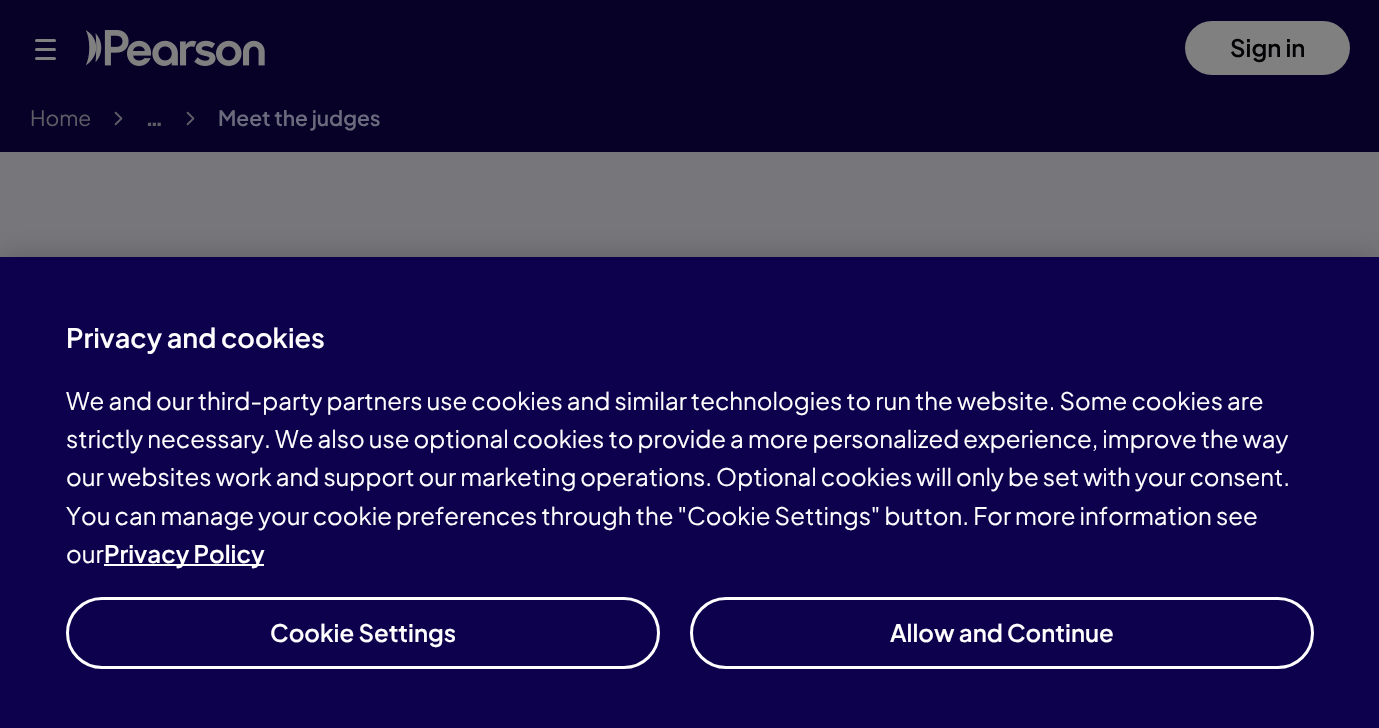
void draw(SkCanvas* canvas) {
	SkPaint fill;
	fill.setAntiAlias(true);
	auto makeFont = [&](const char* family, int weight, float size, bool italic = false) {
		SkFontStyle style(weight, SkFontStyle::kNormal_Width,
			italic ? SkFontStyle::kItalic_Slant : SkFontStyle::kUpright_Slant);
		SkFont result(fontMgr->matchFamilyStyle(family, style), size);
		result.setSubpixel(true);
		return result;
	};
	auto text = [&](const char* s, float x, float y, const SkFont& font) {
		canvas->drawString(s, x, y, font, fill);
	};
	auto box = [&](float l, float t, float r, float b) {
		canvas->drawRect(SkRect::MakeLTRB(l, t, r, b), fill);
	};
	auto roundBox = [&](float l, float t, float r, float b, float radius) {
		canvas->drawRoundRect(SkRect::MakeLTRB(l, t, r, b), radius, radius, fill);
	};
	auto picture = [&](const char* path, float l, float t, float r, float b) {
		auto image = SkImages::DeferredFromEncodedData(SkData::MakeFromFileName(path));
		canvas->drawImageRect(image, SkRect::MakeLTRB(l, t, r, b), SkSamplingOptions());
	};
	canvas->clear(0xFF77767B);
	fill.setColor(0xFF070027);
	box(0, 0, 1379, 152);
	fill.setColor(0xFF808080);
	roundBox(35, 48, 56, 51, 1.5f);
	roundBox(35, 39, 56, 42, 1.5f);
	roundBox(35, 57, 56, 60, 1.5f);
	picture("image0.png", 86, 30, 265, 66);
	roundBox(1185, 21, 1350, 75, 27);
	picture("image1.png", 114, 111, 123, 126);
	picture("image1.png", 186, 111, 195, 126);
	fill.setColor(0x33000000);
	fill.setMaskFilter(SkMaskFilter::MakeBlur(kNormal_SkBlurStyle, 13.5f));
	canvas->drawRect(SkRect::MakeLTRB(0, 257, 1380, 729), fill);
	fill.setMaskFilter(nullptr);
	fill.setColor(0xFF0D004D);
	box(0, 257, 1379, 728);
	fill.setColor(0xFFFEFEFE);
	box(104, 564, 264, 566);
	fill.setStyle(SkPaint::kStroke_Style);
	fill.setStrokeWidth(3);
	fill.setColor(0xFFFFFFFF);
	canvas->drawRoundRect(SkRect::MakeLTRB(67.5f, 598.5f, 658.5f, 667.5f), 34.5f, 34.5f, fill);
	canvas->drawRoundRect(SkRect::MakeLTRB(691.5f, 598.5f, 1312.5f, 667.5f), 34.5f, 34.5f, fill);
	auto font1 = makeFont("Plus Jakarta Sans", 600, 24);
	fill.setStyle(SkPaint::kFill_Style);
	fill.setColor(0xFF030305);
	text("Sign in", 1230, 57, font1);
	auto font2 = makeFont("Plus Jakarta Sans", 400, 21);
	fill.setColor(0xFF5E5D66);
	text("Home", 30, 126, font2);
	auto font3 = makeFont("Plus Jakarta Sans", 700, 24);
	text("…", 145, 126, font3);
	auto font4 = makeFont("Plus Jakarta Sans", 600, 21);
	fill.setColor(0xFF6B6B7E);
	text("Meet the judges", 218, 126, font4);
	auto font5 = makeFont("Plus Jakarta Sans", 600, 27);
	fill.setColor(0xFFFFFFFF);
	text("Privacy and cookies", 66, 348, font5);
	auto font6 = makeFont("Plus Jakarta Sans", 400, 24);
	text("We and our third-party partners use cookies and similar technologies to run the website. Some cookies are", 66, 410, font6);
	text("strictly necessary. We also use optional cookies to provide a more personalized experience, improve the way", 66, 448, font6);
	text("our websites work and support our marketing operations. Optional cookies will only be set with your consent.", 66, 486, font6);
	text("You can manage your cookie preferences through the \"Cookie Settings\" button. For more information see", 66, 525, font6);
	text("our", 66, 563, font6);
	text("Privacy Policy", 104, 563, font1);
	text("Cookie Settings", 270, 642, font1);
	text("Allow and Continue", 890, 642, font1);
}
